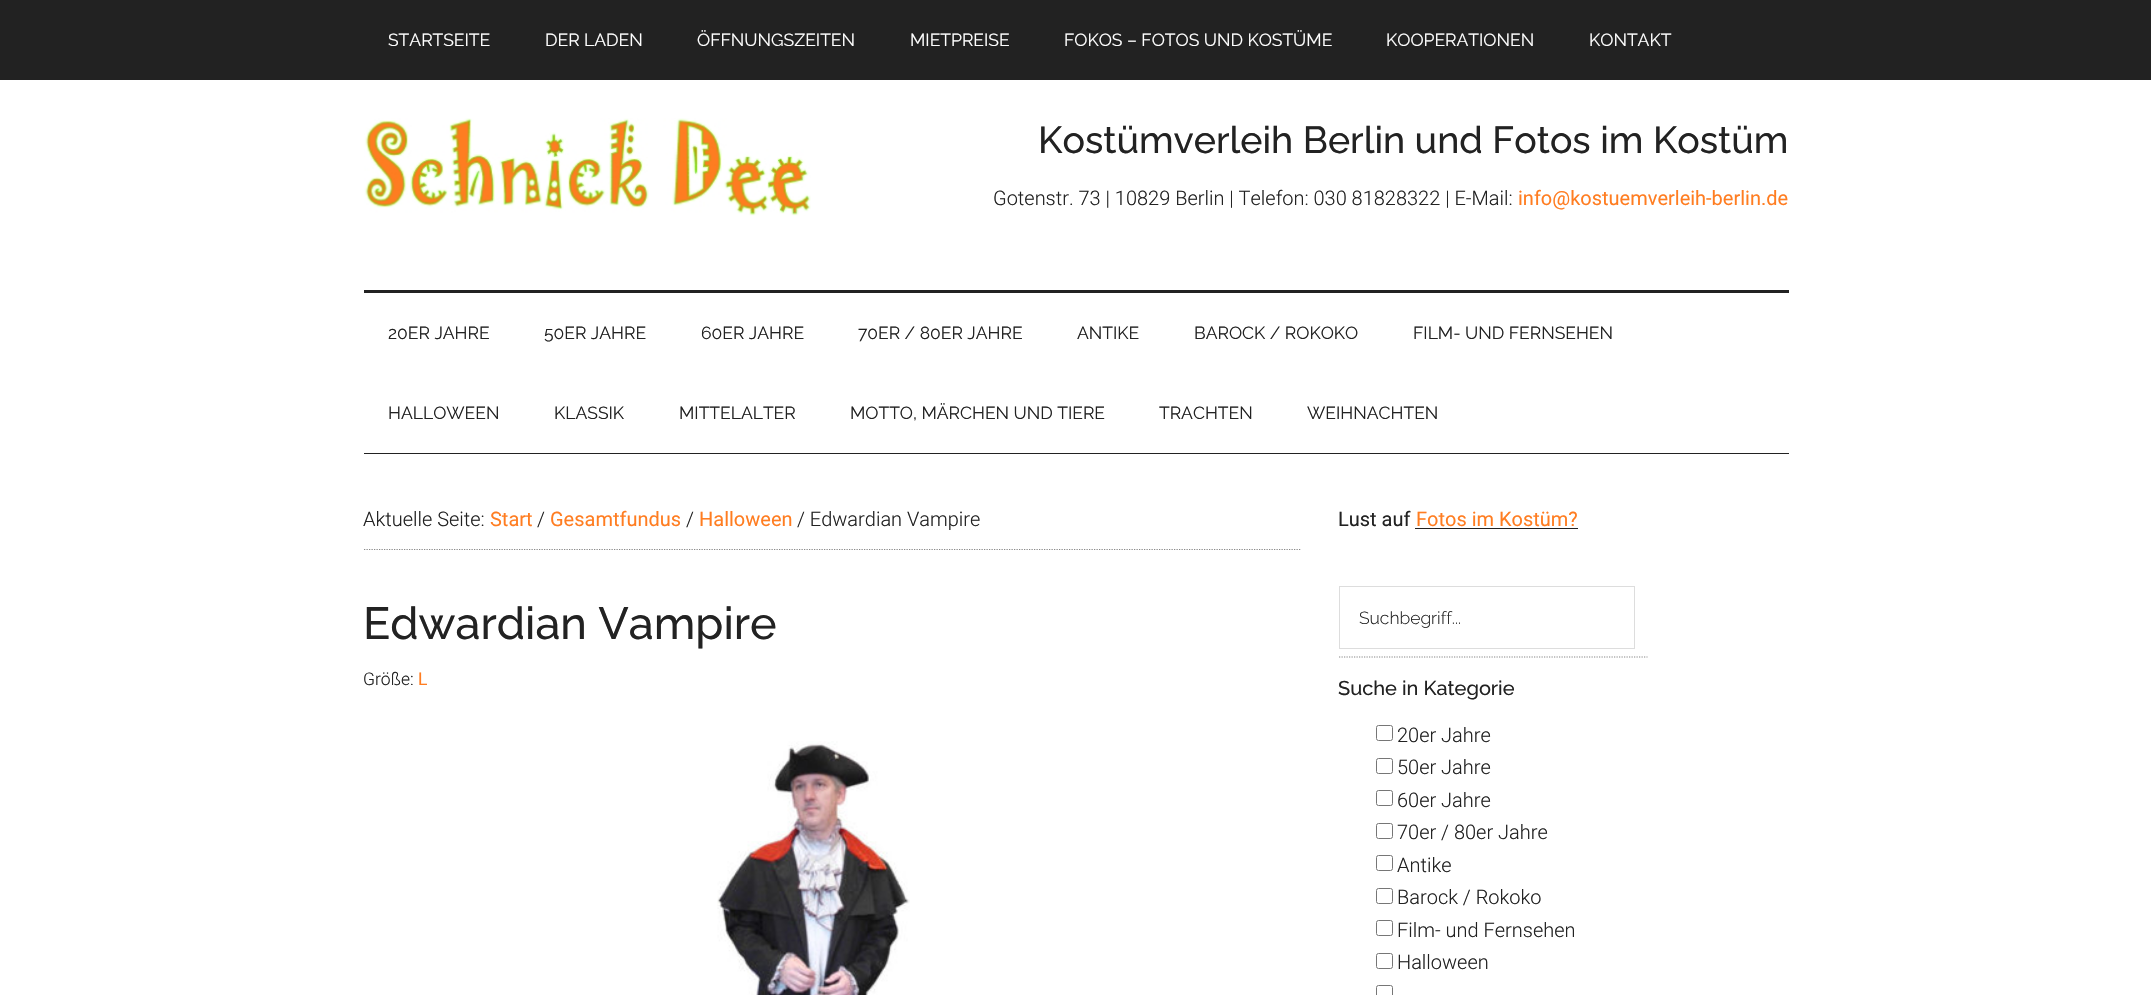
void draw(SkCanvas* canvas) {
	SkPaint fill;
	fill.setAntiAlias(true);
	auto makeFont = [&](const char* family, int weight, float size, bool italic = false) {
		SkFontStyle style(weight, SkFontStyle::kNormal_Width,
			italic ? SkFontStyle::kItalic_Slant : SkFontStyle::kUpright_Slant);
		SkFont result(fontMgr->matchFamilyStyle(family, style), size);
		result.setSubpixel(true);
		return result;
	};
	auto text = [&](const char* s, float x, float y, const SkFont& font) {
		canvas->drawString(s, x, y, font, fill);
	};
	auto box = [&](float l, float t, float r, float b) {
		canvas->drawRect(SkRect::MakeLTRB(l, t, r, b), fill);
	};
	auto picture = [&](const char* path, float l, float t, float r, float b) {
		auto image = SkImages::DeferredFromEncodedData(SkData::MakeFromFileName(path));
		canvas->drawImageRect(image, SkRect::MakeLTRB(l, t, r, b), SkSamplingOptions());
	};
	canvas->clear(0xFFFFFFFF);
	fill.setColor(0xFF222222);
	box(0, 0, 2151, 80);
	box(364, 290, 1789, 293);
	picture("image0.png", 364, 118, 811, 216);
	box(364, 453, 1789, 454);
	fill.setStyle(SkPaint::kStroke_Style);
	fill.setStrokeWidth(1.2f);
	fill.setColor(0xFF888888);
	fill.setPathEffect(SkDashPathEffect::Make({{1.25f, 1.25f}}, 0));
	canvas->drawPath(SkPathBuilder().moveTo(364, 549.5f).lineTo(1301, 549.5f).detach(), fill);
	fill.setPathEffect(nullptr);
	picture("image1.png", 717, 741, 910, 995);
	fill.setStyle(SkPaint::kFill_Style);
	fill.setColor(0xFF222222);
	box(1415, 528, 1578, 529);
	fill.setStyle(SkPaint::kStroke_Style);
	fill.setColor(0xFF888888);
	fill.setPathEffect(SkDashPathEffect::Make({{1.25f, 1.25f}}, 0));
	canvas->drawPath(SkPathBuilder().moveTo(1339, 657).lineTo(1647.5f, 657).detach(), fill);
	fill.setPathEffect(nullptr);
	fill.setStrokeWidth(1);
	fill.setColor(0xFFDDDDDD);
	canvas->drawRect(SkRect::MakeLTRB(1339.5f, 586.5f, 1634.5f, 648.5f), fill);
	fill.setColor(0xFF767676);
	canvas->drawRoundRect(SkRect::MakeLTRB(1376.5f, 725.5f, 1392.5f, 740.5f), 2, 2, fill);
	canvas->drawRoundRect(SkRect::MakeLTRB(1376.5f, 758.5f, 1392.5f, 773.5f), 2, 2, fill);
	canvas->drawRoundRect(SkRect::MakeLTRB(1376.5f, 790.5f, 1392.5f, 805.5f), 2, 2, fill);
	canvas->drawRoundRect(SkRect::MakeLTRB(1376.5f, 823.5f, 1392.5f, 838.5f), 2, 2, fill);
	canvas->drawRoundRect(SkRect::MakeLTRB(1376.5f, 855.5f, 1392.5f, 870.5f), 2, 2, fill);
	canvas->drawRoundRect(SkRect::MakeLTRB(1376.5f, 888.5f, 1392.5f, 903.5f), 2, 2, fill);
	canvas->drawRoundRect(SkRect::MakeLTRB(1376.5f, 920.5f, 1392.5f, 935.5f), 2, 2, fill);
	canvas->drawRoundRect(SkRect::MakeLTRB(1376.5f, 953.5f, 1392.5f, 968.5f), 2, 2, fill);
	canvas->drawRoundRect(SkRect::MakeLTRB(1376.5f, 985.5f, 1392.5f, 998.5f), 2, 2, fill);
	auto font1 = makeFont("Raleway", 400, 17.5f);
	fill.setStyle(SkPaint::kFill_Style);
	fill.setColor(0xFFFFFFFF);
	text("STARTSEITE", 388, 46, font1);
	text("DER LADEN", 545, 46, font1);
	text("ÖFFNUNGSZEITEN", 697, 46, font1);
	text("MIETPREISE", 910, 46, font1);
	text("FOKOS – FOTOS UND KOSTÜME", 1064, 46, font1);
	text("KOOPERATIONEN", 1386, 46, font1);
	text("KONTAKT", 1589, 46, font1);
	auto font2 = makeFont("Raleway", 500, 37.5f);
	fill.setColor(0xFF222222);
	text("Kostümverleih Berlin und Fotos im Kostüm", 1038, 153, font2);
	auto font3 = makeFont("Roboto", 300, 20);
	text("Gotenstr. 73 | 10829 Berlin | Telefon: 030 81828322 | E-Mail:", 993, 205, font3);
	auto font4 = makeFont("Roboto", 400, 20);
	fill.setColor(0xFFFF7D21);
	text("info@kostuemverleih-berlin.de", 1518, 205, font4);
	fill.setColor(0xFF222222);
	text("20ER JAHRE", 388, 339, font1);
	text("50ER JAHRE", 544, 339, font1);
	text("60ER JAHRE", 701, 339, font1);
	text("70ER / 80ER JAHRE", 858, 339, font1);
	text("ANTIKE", 1077, 339, font1);
	text("BAROCK / ROKOKO", 1194, 339, font1);
	text("FILM- UND FERNSEHEN", 1413, 339, font1);
	text("HALLOWEEN", 388, 419, font1);
	text("KLASSIK", 554, 419, font1);
	text("MITTELALTER", 679, 419, font1);
	text("MOTTO, MÄRCHEN UND TIERE", 850, 419, font1);
	text("TRACHTEN", 1159, 419, font1);
	text("WEIHNACHTEN", 1307, 419, font1);
	text("Aktuelle Seite:", 363, 526, font3);
	fill.setColor(0xFFFF7D21);
	text("Start", 490, 526, font4);
	fill.setColor(0xFF222222);
	text("/", 537, 526, font3);
	fill.setColor(0xFFFF7D21);
	text("Gesamtfundus", 550, 526, font4);
	fill.setColor(0xFF222222);
	text("/", 686, 526, font3);
	fill.setColor(0xFFFF7D21);
	text("Halloween", 699, 526, font4);
	fill.setColor(0xFF222222);
	text("/ Edwardian Vampire", 797, 526, font3);
	auto font5 = makeFont("Raleway", 500, 45);
	text("Edwardian Vampire", 363, 639, font5);
	auto font6 = makeFont("Roboto", 300, 17.5f);
	text("Größe:", 363, 685, font6);
	auto font7 = makeFont("Roboto", 400, 17.5f);
	fill.setColor(0xFFFF7D21);
	text("L", 418, 685, font7);
	fill.setColor(0xFF222222);
	text("Lust auf", 1338, 526, font4);
	fill.setColor(0xFFFF7D21);
	text("Fotos im Kostüm?", 1416, 526, font4);
	auto font8 = makeFont("Raleway", 300, 17.5f);
	fill.setColor(0xFF222222);
	text("Suchbegriff...", 1359, 624, font8);
	auto font9 = makeFont("Raleway", 500, 20);
	text("Suche in Kategorie", 1338, 695, font9);
	text("20er Jahre", 1397, 742, font3);
	text("50er Jahre", 1397, 774, font3);
	text("60er Jahre", 1397, 807, font3);
	text("70er / 80er Jahre", 1397, 839, font3);
	text("Antike", 1397, 872, font3);
	text("Barock / Rokoko", 1397, 904, font3);
	text("Film- und Fernsehen", 1397, 937, font3);
	text("Halloween", 1397, 969, font3);
}
